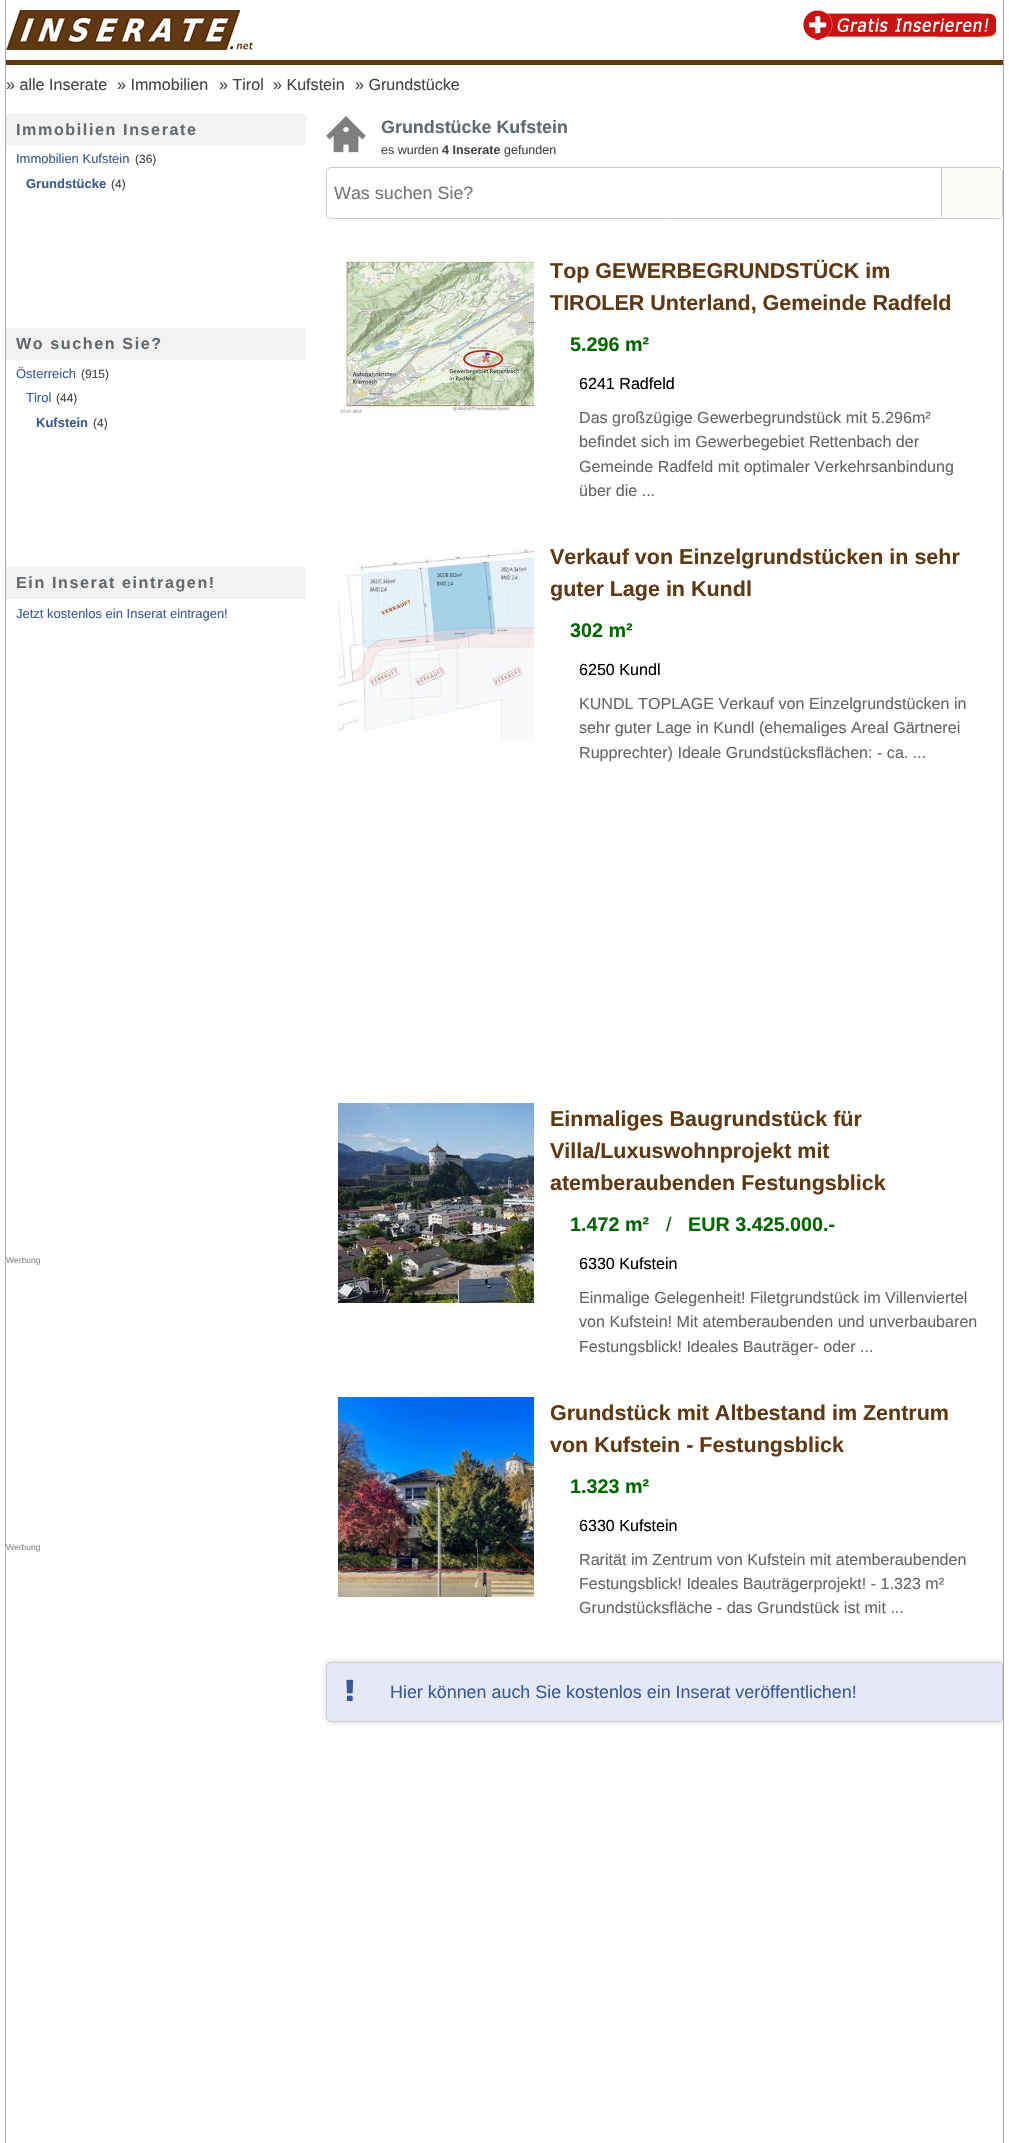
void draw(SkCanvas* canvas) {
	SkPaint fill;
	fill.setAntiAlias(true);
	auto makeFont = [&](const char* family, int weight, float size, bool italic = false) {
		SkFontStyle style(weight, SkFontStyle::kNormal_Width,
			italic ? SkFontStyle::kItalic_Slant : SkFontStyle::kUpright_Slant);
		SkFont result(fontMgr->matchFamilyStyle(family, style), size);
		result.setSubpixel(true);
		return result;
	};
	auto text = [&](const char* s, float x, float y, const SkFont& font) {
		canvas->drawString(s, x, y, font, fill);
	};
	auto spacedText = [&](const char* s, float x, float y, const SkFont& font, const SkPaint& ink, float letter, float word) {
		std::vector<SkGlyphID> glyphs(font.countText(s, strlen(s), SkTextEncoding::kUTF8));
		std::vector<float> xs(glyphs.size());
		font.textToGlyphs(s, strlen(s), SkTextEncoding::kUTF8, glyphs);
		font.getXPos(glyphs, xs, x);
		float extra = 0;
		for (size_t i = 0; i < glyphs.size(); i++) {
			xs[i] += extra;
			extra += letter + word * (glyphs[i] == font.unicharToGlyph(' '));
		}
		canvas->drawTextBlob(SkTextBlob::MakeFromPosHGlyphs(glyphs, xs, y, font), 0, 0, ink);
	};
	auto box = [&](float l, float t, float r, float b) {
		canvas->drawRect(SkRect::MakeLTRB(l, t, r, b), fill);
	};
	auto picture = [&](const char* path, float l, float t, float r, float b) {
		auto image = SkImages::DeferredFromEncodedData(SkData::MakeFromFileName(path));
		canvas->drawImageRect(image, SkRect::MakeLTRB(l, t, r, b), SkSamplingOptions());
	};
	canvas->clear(0xFFFFFFFF);
	fill.setColor(0xFFAAAAAA);
	box(1003, 0, 1004, 2143);
	box(5, 0, 6, 2143);
	fill.setColor(0xFF603913);
	box(6, 60, 1003, 65);
	picture("image0.png", 6, 10, 253, 50);
	picture("image1.png", 803, 10, 996, 40);
	fill.setColor(0xFFF2F2F2);
	box(6, 114, 306, 145);
	box(6, 328, 306, 360);
	box(6, 567, 306, 599);
	picture("image2.png", 326, 116, 366, 153);
	fill.setStyle(SkPaint::kStroke_Style);
	fill.setStrokeWidth(1);
	fill.setColor(0xFFCCCCCC);
	canvas->drawRoundRect(SkRect::MakeLTRB(326.5f, 167.5f, 1002.5f, 218.5f), 4.5f, 4.5f, fill);
	fill.setStyle(SkPaint::kFill_Style);
	fill.setColor(0xFFFBFAF6);
	canvas->drawPath(SkPathBuilder().moveTo(941, 168).lineTo(998, 168).cubicTo(1000, 168, 1002, 170, 1002, 172).lineTo(1002, 214).cubicTo(1002, 216, 1000, 218, 998, 218).lineTo(941, 218).close().detach(), fill);
	fill.setColor(0xFFCCCCCC);
	box(941, 168, 942, 218);
	fill.setColor(0xFFFBFAF6);
	canvas->drawPath(SkPathBuilder().moveTo(942, 168).lineTo(998, 168).cubicTo(1000, 168, 1002, 170, 1002, 172).lineTo(1002, 210).lineTo(942, 210).close().detach(), fill);
	picture("image3.png", 338, 255, 534, 415);
	picture("image4.png", 338, 548, 534, 741);
	picture("image5.png", 338, 1103, 534, 1303);
	picture("image6.png", 338, 1397, 534, 1597);
	canvas->save();
	canvas->clipRect(SkRect::MakeLTRB(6, 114, 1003, 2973));
	fill.setColor(0xFFCCCCCC);
	fill.setMaskFilter(SkMaskFilter::MakeBlur(kNormal_SkBlurStyle, 2.5f));
	canvas->drawRoundRect(SkRect::MakeLTRB(326, 1662, 1003, 1722), 5, 5, fill);
	fill.setMaskFilter(nullptr);
	canvas->restore();
	fill.setColor(0xFFE4E9F5);
	canvas->drawRoundRect(SkRect::MakeLTRB(326.5f, 1662.5f, 1002.5f, 1721.5f), 4.5f, 4.5f, fill);
	fill.setStyle(SkPaint::kStroke_Style);
	fill.setColor(0xFFCCCCCC);
	canvas->drawRoundRect(SkRect::MakeLTRB(326.5f, 1662.5f, 1002.5f, 1721.5f), 4.5f, 4.5f, fill);
	picture("image7.png", 346, 1679, 354, 1701);
	auto font1 = makeFont("Liberation Sans", 400, 16.1f);
	fill.setStyle(SkPaint::kFill_Style);
	fill.setColor(0xFF444444);
	text("» alle Inserate", 6, 90, font1);
	text("» Immobilien", 117, 90, font1);
	text("» Tirol", 219, 90, font1);
	text("» Kufstein", 273, 90, font1);
	text("» Grundstücke", 355, 90, font1);
	auto font2 = makeFont("Liberation Sans", 700, 16.1f);
	fill.setColor(0xFF626A70);
	spacedText("Immobilien Inserate", 16, 135, font2, fill, 1.6f, 0);
	auto font3 = makeFont("Liberation Sans", 400, 13);
	fill.setColor(0xFF3B5998);
	text("Immobilien Kufstein", 16, 163, font3);
	auto font4 = makeFont("Liberation Sans", 400, 12);
	fill.setColor(0xFF444444);
	text("(36)", 135, 163, font4);
	auto font5 = makeFont("Liberation Sans", 700, 13);
	fill.setColor(0xFF3B5998);
	text("Grundstücke", 26, 188, font5);
	fill.setColor(0xFF444444);
	text("(4)", 111, 188, font4);
	fill.setColor(0xFF626A70);
	spacedText("Wo suchen Sie?", 16, 349, font2, fill, 1.6f, 0);
	fill.setColor(0xFF3B5998);
	text("Österreich", 16, 378, font3);
	fill.setColor(0xFF444444);
	text("(915)", 81, 378, font4);
	fill.setColor(0xFF3B5998);
	text("Tirol", 26, 402, font3);
	fill.setColor(0xFF444444);
	text("(44)", 56, 402, font4);
	fill.setColor(0xFF3B5998);
	text("Kufstein", 36, 427, font5);
	fill.setColor(0xFF444444);
	text("(4)", 93, 427, font4);
	fill.setColor(0xFF626A70);
	spacedText("Ein Inserat eintragen!", 16, 588, font2, fill, 1.6f, 0);
	fill.setColor(0xFF3B5998);
	text("Jetzt kostenlos ein Inserat eintragen!", 16, 618, font3);
	auto font6 = makeFont("Liberation Sans", 400, 8.5f);
	fill.setColor(0xFF888888);
	text("Werbung", 6, 1263, font6);
	text("Werbung", 6, 1550, font6);
	auto font7 = makeFont("Liberation Sans", 700, 17.9f);
	fill.setColor(0xFF626A70);
	text("Grundstücke Kufstein", 381, 133, font7);
	auto font8 = makeFont("Liberation Sans", 400, 12.5f);
	fill.setColor(0xFF444444);
	text("es wurden", 381, 154, font8);
	auto font9 = makeFont("Liberation Sans", 700, 12.5f);
	text("4 Inserate", 442, 154, font9);
	text("gefunden", 504, 154, font8);
	auto font10 = makeFont("Liberation Sans", 400, 17.9f);
	fill.setColor(0xFF757575);
	text("Was suchen Sie?", 334, 199, font10);
	auto font11 = makeFont("Liberation Sans", 700, 21.5f);
	fill.setColor(0xFF603913);
	text("Top GEWERBEGRUNDSTÜCK im", 550, 278, font11);
	text("TIROLER Unterland, Gemeinde Radfeld", 550, 310, font11);
	auto font12 = makeFont("Liberation Sans", 700, 19.75f);
	fill.setColor(0xFF006600);
	text("5.296 m²", 570, 351, font12);
	fill.setColor(0xFF000000);
	text("6241 Radfeld", 579, 389, font1);
	fill.setColor(0xFF666666);
	text("Das großzügige Gewerbegrundstück mit 5.296m²", 579, 423, font1);
	text("befindet sich im Gewerbegebiet Rettenbach der", 579, 447, font1);
	text("Gemeinde Radfeld mit optimaler Verkehrsanbindung", 579, 472, font1);
	text("über die ...", 579, 496, font1);
	fill.setColor(0xFF603913);
	text("Verkauf von Einzelgrundstücken in sehr", 550, 564, font11);
	text("guter Lage in Kundl", 550, 596, font11);
	fill.setColor(0xFF006600);
	text("302 m²", 570, 637, font12);
	fill.setColor(0xFF000000);
	text("6250 Kundl", 579, 675, font1);
	fill.setColor(0xFF666666);
	text("KUNDL TOPLAGE Verkauf von Einzelgrundstücken in", 579, 709, font1);
	text("sehr guter Lage in Kundl (ehemaliges Areal Gärtnerei", 579, 733, font1);
	text("Rupprechter) Ideale Grundstücksflächen: - ca. ...", 579, 758, font1);
	fill.setColor(0xFF603913);
	text("Einmaliges Baugrundstück für", 550, 1126, font11);
	text("Villa/Luxuswohnprojekt mit", 550, 1158, font11);
	text("atemberaubenden Festungsblick", 550, 1190, font11);
	fill.setColor(0xFF006600);
	text("1.472 m²", 570, 1231, font12);
	auto font13 = makeFont("Liberation Sans", 400, 19.75f);
	text("/", 666, 1231, font13);
	text("EUR 3.425.000.-", 688, 1231, font12);
	fill.setColor(0xFF000000);
	text("6330 Kufstein", 579, 1269, font1);
	fill.setColor(0xFF666666);
	text("Einmalige Gelegenheit! Filetgrundstück im Villenviertel", 579, 1303, font1);
	text("von Kufstein! Mit atemberaubenden und unverbaubaren", 579, 1327, font1);
	text("Festungsblick! Ideales Bauträger- oder ...", 579, 1352, font1);
	fill.setColor(0xFF603913);
	text("Grundstück mit Altbestand im Zentrum", 550, 1420, font11);
	text("von Kufstein - Festungsblick", 550, 1452, font11);
	fill.setColor(0xFF006600);
	text("1.323 m²", 570, 1493, font12);
	fill.setColor(0xFF000000);
	text("6330 Kufstein", 579, 1531, font1);
	fill.setColor(0xFF666666);
	text("Rarität im Zentrum von Kufstein mit atemberaubenden", 579, 1565, font1);
	text("Festungsblick! Ideales Bauträgerprojekt! - 1.323 m²", 579, 1589, font1);
	text("Grundstücksfläche - das Grundstück ist mit ...", 579, 1613, font1);
	fill.setColor(0xFF3B5998);
	text("Hier können auch Sie kostenlos ein Inserat veröffentlichen!", 390, 1698, font10);
}
